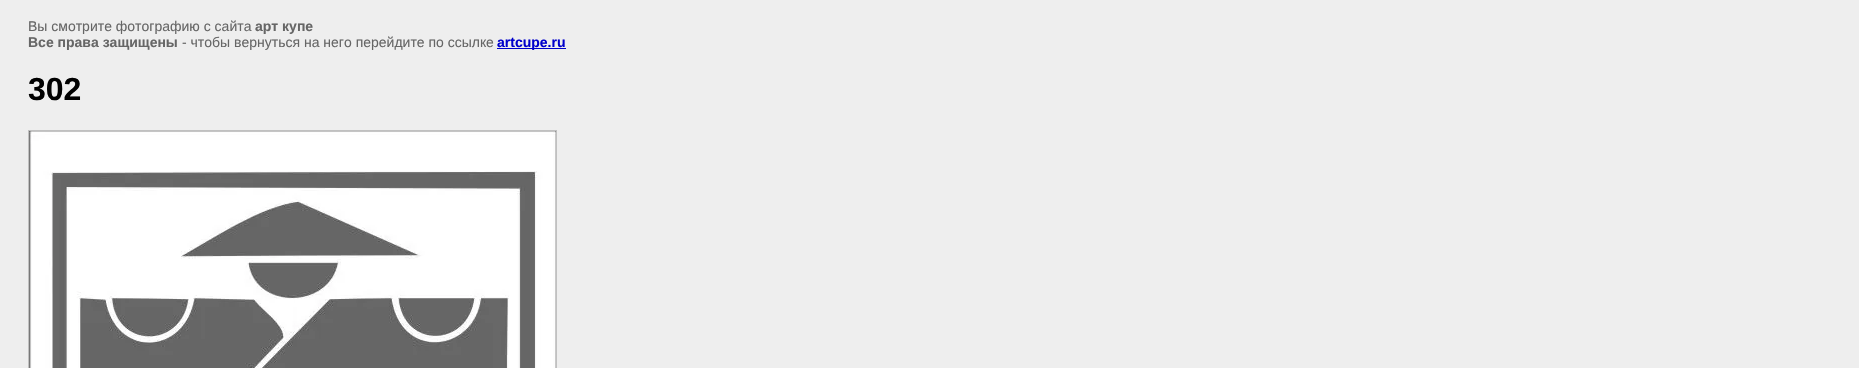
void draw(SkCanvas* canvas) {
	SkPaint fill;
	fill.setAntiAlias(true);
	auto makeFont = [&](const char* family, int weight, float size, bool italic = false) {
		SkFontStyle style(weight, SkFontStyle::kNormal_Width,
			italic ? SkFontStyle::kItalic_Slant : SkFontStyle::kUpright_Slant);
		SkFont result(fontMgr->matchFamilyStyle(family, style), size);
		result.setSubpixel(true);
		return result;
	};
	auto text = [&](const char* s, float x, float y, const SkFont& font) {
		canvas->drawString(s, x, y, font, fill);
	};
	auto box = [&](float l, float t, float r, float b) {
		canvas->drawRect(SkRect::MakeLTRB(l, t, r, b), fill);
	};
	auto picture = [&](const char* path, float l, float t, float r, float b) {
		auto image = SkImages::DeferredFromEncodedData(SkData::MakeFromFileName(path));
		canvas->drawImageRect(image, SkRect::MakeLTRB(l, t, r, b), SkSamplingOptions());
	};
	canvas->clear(0xFFEEEEEE);
	fill.setColor(0xFF0000CC);
	box(497, 48, 566, 49);
	fill.setStyle(SkPaint::kStroke_Style);
	fill.setStrokeWidth(1);
	fill.setColor(0xFFC0C0C0);
	canvas->drawRect(SkRect::MakeLTRB(28.5f, 130.5f, 556.5f, 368.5f), fill);
	picture("image0.png", 29, 131, 556, 368);
	auto font1 = makeFont("Liberation Sans", 400, 14);
	fill.setStyle(SkPaint::kFill_Style);
	fill.setColor(0xFF666666);
	text("Вы смотрите фотографию с сайта", 28, 31, font1);
	auto font2 = makeFont("Liberation Sans", 700, 14);
	text("арт купе", 255, 31, font2);
	text("Все права защищены", 28, 47, font2);
	text("- чтобы вернуться на него перейдите по ссылке", 182, 47, font1);
	fill.setColor(0xFF0000CC);
	text("artcupe.ru", 497, 47, font2);
	auto font3 = makeFont("Liberation Sans", 700, 32);
	fill.setColor(0xFF000000);
	text("302", 28, 100, font3);
}
